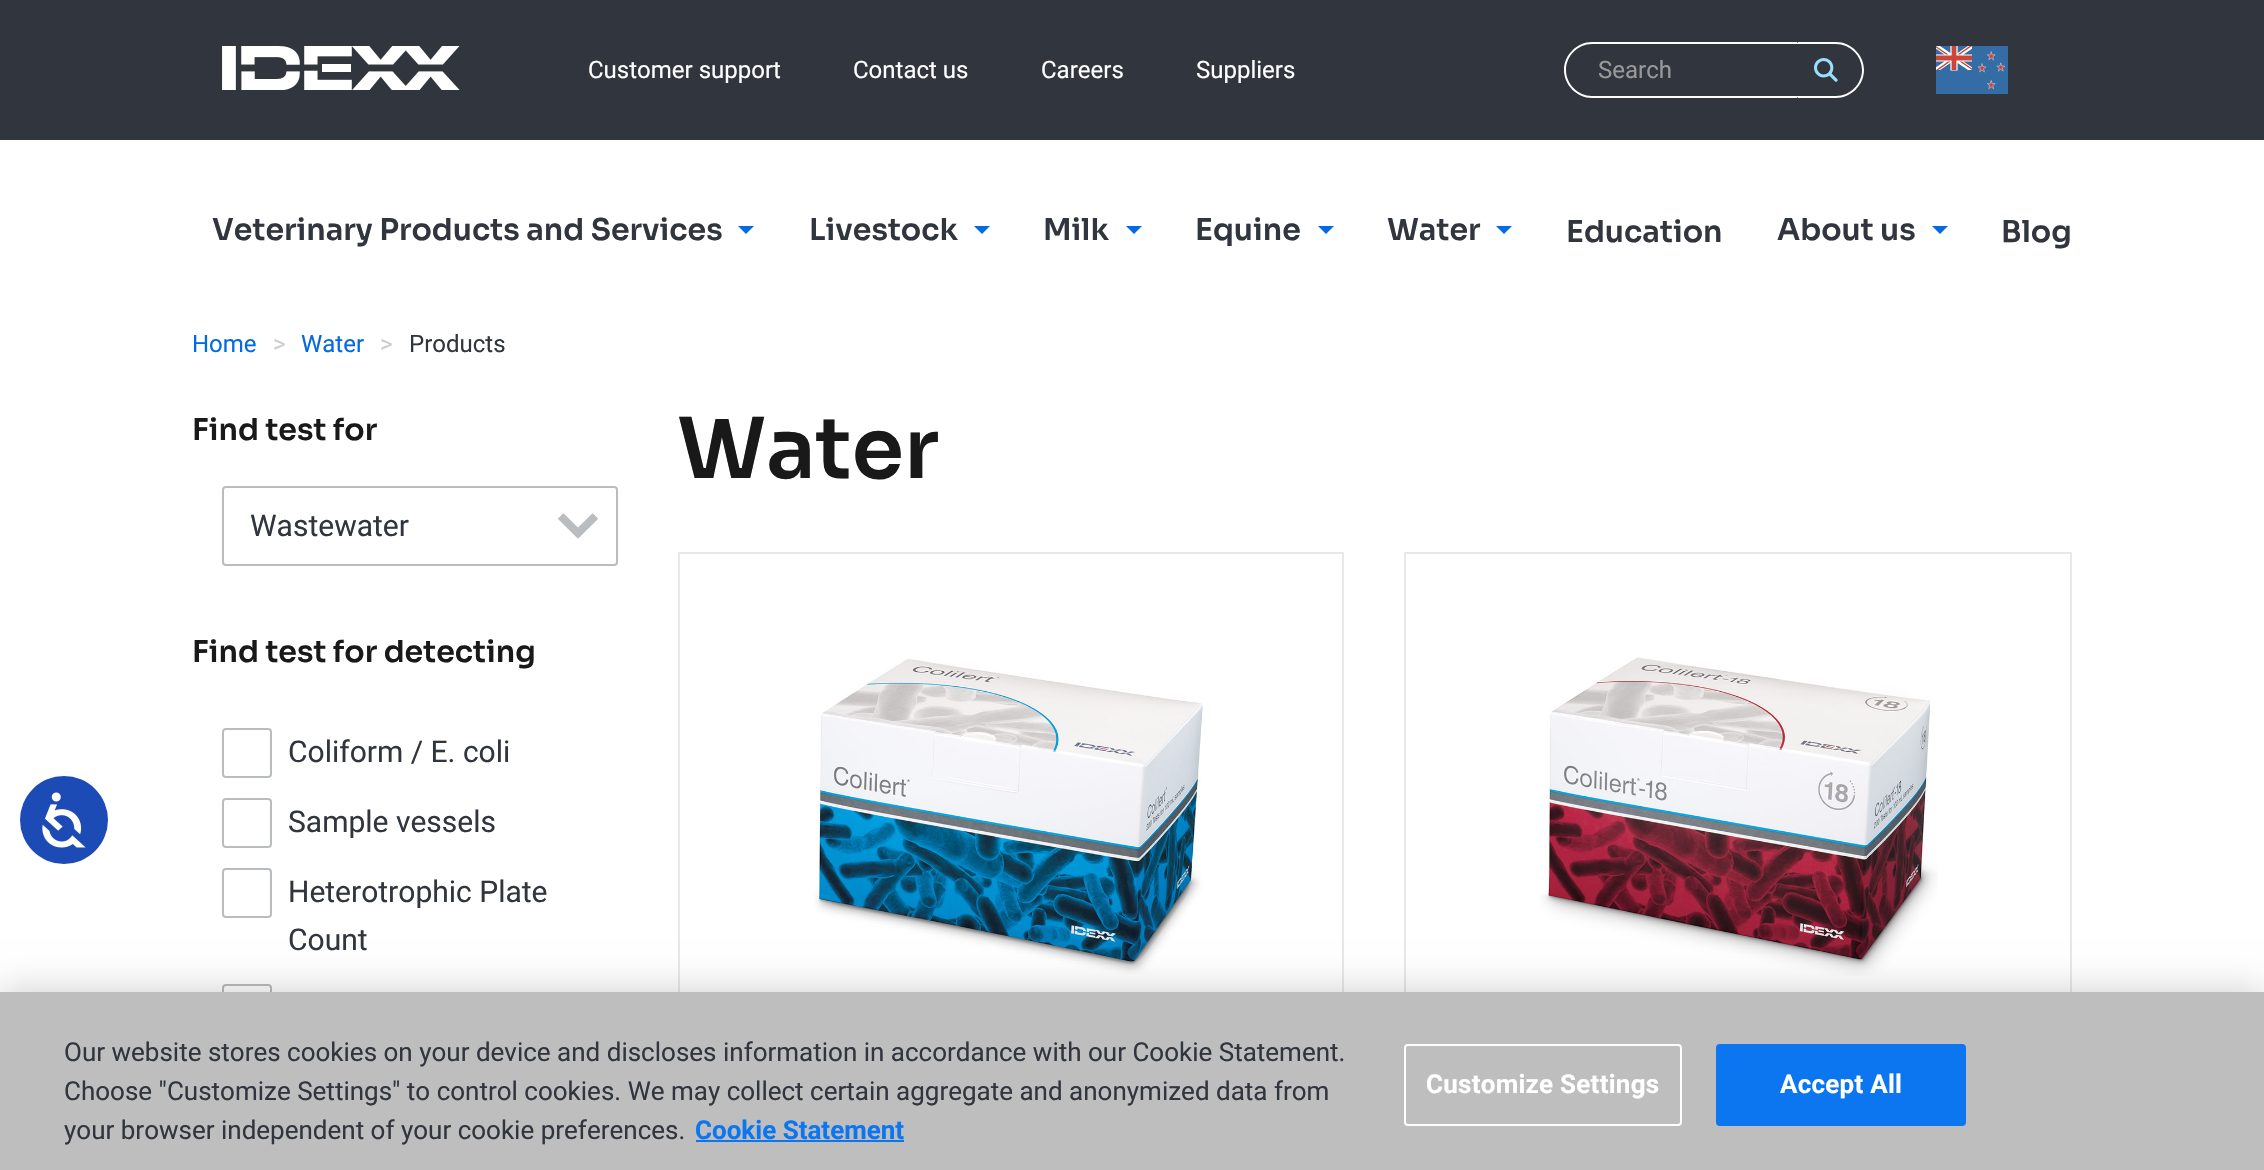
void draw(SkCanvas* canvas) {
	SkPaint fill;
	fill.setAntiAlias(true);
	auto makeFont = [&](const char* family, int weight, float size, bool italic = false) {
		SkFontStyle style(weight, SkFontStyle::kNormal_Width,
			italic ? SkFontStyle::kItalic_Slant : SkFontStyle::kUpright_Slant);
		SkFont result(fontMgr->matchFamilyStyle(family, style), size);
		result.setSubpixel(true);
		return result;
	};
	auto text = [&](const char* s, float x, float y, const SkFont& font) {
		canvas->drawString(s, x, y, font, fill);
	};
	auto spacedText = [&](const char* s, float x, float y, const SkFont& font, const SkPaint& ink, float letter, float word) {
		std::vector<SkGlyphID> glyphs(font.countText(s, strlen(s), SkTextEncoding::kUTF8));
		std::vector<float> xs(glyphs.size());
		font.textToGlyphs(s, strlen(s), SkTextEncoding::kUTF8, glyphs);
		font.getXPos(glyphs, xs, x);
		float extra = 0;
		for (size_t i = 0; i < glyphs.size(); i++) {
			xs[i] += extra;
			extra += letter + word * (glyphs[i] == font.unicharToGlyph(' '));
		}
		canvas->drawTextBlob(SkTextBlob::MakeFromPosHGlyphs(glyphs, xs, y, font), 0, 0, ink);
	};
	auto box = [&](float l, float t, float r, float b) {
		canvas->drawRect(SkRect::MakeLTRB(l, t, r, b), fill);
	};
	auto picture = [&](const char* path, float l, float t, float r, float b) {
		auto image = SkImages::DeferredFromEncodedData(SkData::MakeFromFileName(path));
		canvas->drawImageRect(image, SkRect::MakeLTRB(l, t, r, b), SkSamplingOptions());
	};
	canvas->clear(0xFFFFFFFF);
	fill.setColor(0xFF31353D);
	box(0, 0, 2264, 140);
	picture("image0.png", 222, 46, 460, 90);
	fill.setColor(0xFFFFFFFF);
	canvas->drawPath(SkPathBuilder(SkPathFillType::kEvenOdd).moveTo(1592, 42).lineTo(1797, 42).lineTo(1798, 43).lineTo(1798, 97).lineTo(1797, 98).lineTo(1592, 98).cubicTo(1577, 98, 1564, 85, 1564, 70).cubicTo(1564, 55, 1577, 42, 1592, 42).close().moveTo(1592, 44).lineTo(1798, 44).lineTo(1798, 96).lineTo(1592, 96).cubicTo(1578, 96, 1566, 84, 1566, 70).cubicTo(1566, 56, 1578, 44, 1592, 44).close().detach(), fill);
	canvas->drawPath(SkPathBuilder(SkPathFillType::kEvenOdd).moveTo(1798, 42).lineTo(1836, 42).cubicTo(1851, 42, 1864, 55, 1864, 70).cubicTo(1864, 85, 1851, 98, 1836, 98).lineTo(1798, 98).close().moveTo(1798, 44).lineTo(1836, 44).cubicTo(1850, 44, 1862, 56, 1862, 70).cubicTo(1862, 84, 1850, 96, 1836, 96).lineTo(1798, 96).close().detach(), fill);
	picture("image1.png", 1814, 58, 1838, 82);
	picture("image2.png", 1936, 46, 2008, 94);
	fill.setColor(0xFF036AE0);
	canvas->drawPath(SkPathBuilder().moveTo(738, 226).lineTo(754, 226).lineTo(746, 234).close().detach(), fill);
	canvas->drawPath(SkPathBuilder().moveTo(974, 226).lineTo(990, 226).lineTo(982, 234).close().detach(), fill);
	canvas->drawPath(SkPathBuilder().moveTo(1126, 226).lineTo(1142, 226).lineTo(1134, 234).close().detach(), fill);
	canvas->drawPath(SkPathBuilder().moveTo(1318, 226).lineTo(1334, 226).lineTo(1326, 234).close().detach(), fill);
	canvas->drawPath(SkPathBuilder().moveTo(1496, 226).lineTo(1512, 226).lineTo(1504, 234).close().detach(), fill);
	canvas->drawPath(SkPathBuilder().moveTo(1932, 226).lineTo(1948, 226).lineTo(1940, 234).close().detach(), fill);
	fill.setColor(0xFF1C4BB6);
	canvas->drawCircle(64, 820, 44, fill);
	picture("image3.png", 42, 792, 86, 848);
	fill.setStyle(SkPaint::kStroke_Style);
	fill.setStrokeWidth(2);
	fill.setColor(0xFFBABDBF);
	canvas->drawRoundRect(SkRect::MakeLTRB(223, 487, 617, 565), 3, 3, fill);
	picture("image4.png", 558, 513, 598, 539);
	canvas->drawRoundRect(SkRect::MakeLTRB(223, 729, 271, 777), 3, 3, fill);
	canvas->drawRoundRect(SkRect::MakeLTRB(223, 799, 271, 847), 3, 3, fill);
	canvas->drawRoundRect(SkRect::MakeLTRB(223, 869, 271, 917), 3, 3, fill);
	canvas->drawRoundRect(SkRect::MakeLTRB(223, 985, 271, 1033), 3, 3, fill);
	fill.setColor(0xFFE8E8E8);
	canvas->drawRect(SkRect::MakeLTRB(679, 553, 1343, 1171), fill);
	picture("image5.png", 814, 658, 1203, 974);
	canvas->drawRect(SkRect::MakeLTRB(1405, 553, 2071, 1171), fill);
	picture("image6.png", 1540, 657, 1938, 976);
	fill.setStyle(SkPaint::kFill_Style);
	fill.setColor(0x33000000);
	fill.setMaskFilter(SkMaskFilter::MakeBlur(kNormal_SkBlurStyle, 18));
	canvas->drawRect(SkRect::MakeLTRB(0, 992, 2264, 1170), fill);
	fill.setMaskFilter(nullptr);
	fill.setColor(0xFFBEBEBE);
	box(0, 992, 2264, 1170);
	fill.setColor(0xFF0B76F0);
	box(696, 1140, 904, 1142);
	fill.setStyle(SkPaint::kStroke_Style);
	fill.setColor(0xFFFFFFFF);
	canvas->drawRoundRect(SkRect::MakeLTRB(1405, 1045, 1681, 1125), 3, 3, fill);
	fill.setStyle(SkPaint::kFill_Style);
	fill.setColor(0xFF0B76F0);
	canvas->drawRoundRect(SkRect::MakeLTRB(1717, 1045, 1965, 1125), 3, 3, fill);
	fill.setStyle(SkPaint::kStroke_Style);
	canvas->drawRoundRect(SkRect::MakeLTRB(1717, 1045, 1965, 1125), 3, 3, fill);
	auto font1 = makeFont("Roboto", 400, 24);
	fill.setStyle(SkPaint::kFill_Style);
	fill.setColor(0xFFFFFFFF);
	text("Customer support", 588, 78, font1);
	text("Contact us", 853, 78, font1);
	text("Careers", 1041, 78, font1);
	text("Suppliers", 1196, 78, font1);
	fill.setColor(0xFF999999);
	text("Search", 1598, 78, font1);
	auto font2 = makeFont("Sora", 600, 30);
	fill.setColor(0xFF31353D);
	text("Veterinary Products and Services", 212, 240, font2);
	text("Livestock", 809, 240, font2);
	text("Milk", 1043, 240, font2);
	text("Equine", 1195, 240, font2);
	text("Water", 1387, 240, font2);
	text("Education", 1566, 242, font2);
	text("About us", 1777, 240, font2);
	text("Blog", 2001, 242, font2);
	fill.setColor(0xFF036AE0);
	text("Home", 192, 352, font1);
	fill.setColor(0xFFCCCCCC);
	text(">", 273, 352, font1);
	fill.setColor(0xFF036AE0);
	text("Water", 301, 352, font1);
	fill.setColor(0xFFCCCCCC);
	text(">", 380, 352, font1);
	fill.setColor(0xFF31353D);
	text("Products", 409, 352, font1);
	fill.setColor(0xFF1A191A);
	text("Find test for", 192, 440, font2);
	auto font3 = makeFont("Roboto", 400, 30);
	fill.setColor(0xFF31353D);
	text("Wastewater", 250, 536, font3);
	fill.setColor(0xFF1A191A);
	text("Find test for detecting", 192, 662, font2);
	fill.setColor(0xFF31353D);
	text("Coliform / E. coli", 288, 762, font3);
	text("Sample vessels", 288, 832, font3);
	text("Heterotrophic Plate", 288, 902, font3);
	text("Count", 288, 950, font3);
	auto font4 = makeFont("Sora", 600, 84);
	fill.setColor(0xFF1A191A);
	text("Water", 677, 478, font4);
	auto font5 = makeFont("Roboto", 400, 26);
	fill.setColor(0xFF31353D);
	text("Our website stores cookies on your device and discloses information in accordance with our Cookie Statement.", 64, 1061, font5);
	text("Choose \"Customize Settings\" to control cookies. We may collect certain aggregate and anonymized data from", 64, 1100, font5);
	text("your browser independent of your cookie preferences.", 64, 1139, font5);
	auto font6 = makeFont("Roboto", 700, 26);
	fill.setColor(0xFF0B76F0);
	text("Cookie Statement", 695, 1139, font6);
	fill.setColor(0xFFFFFFFF);
	spacedText("Customize Settings", 1426, 1093, font6, fill, 0.25f, 0);
	spacedText("Accept All", 1780, 1093, font6, fill, 0.25f, 0);
}
